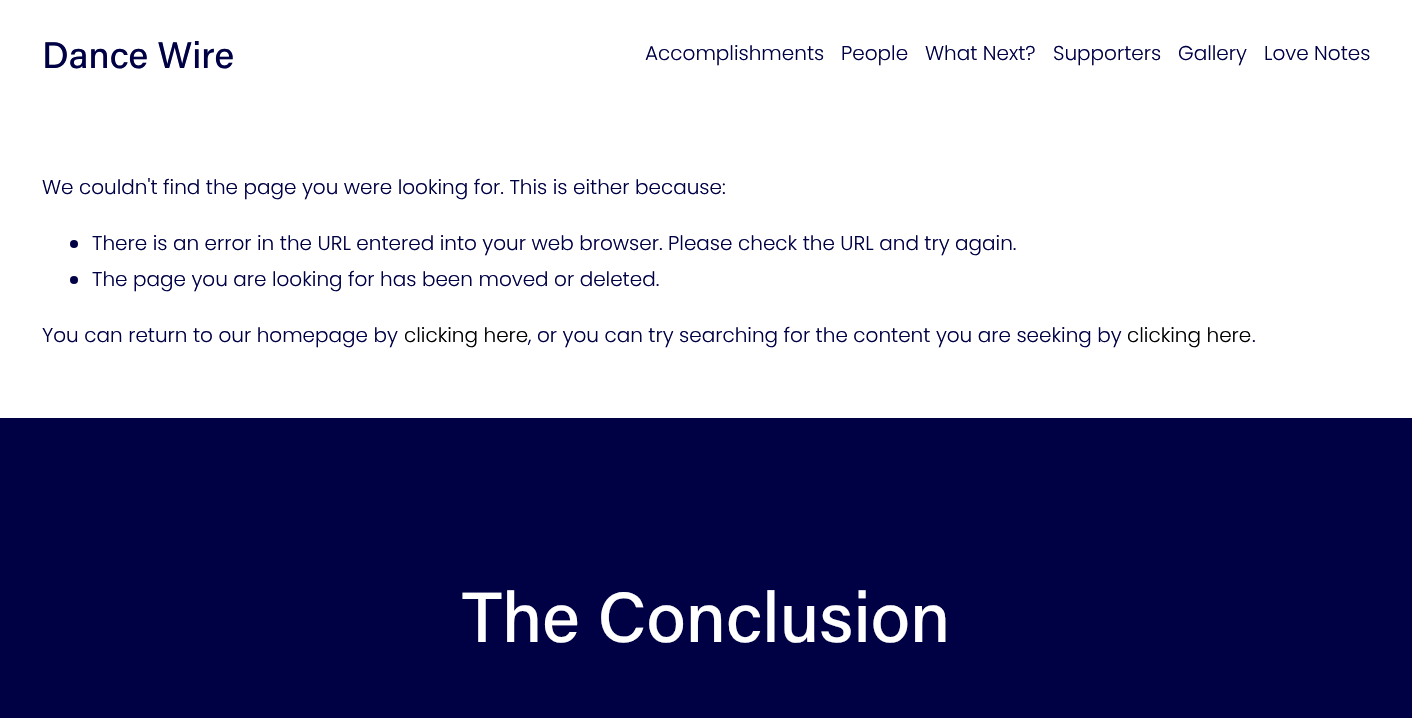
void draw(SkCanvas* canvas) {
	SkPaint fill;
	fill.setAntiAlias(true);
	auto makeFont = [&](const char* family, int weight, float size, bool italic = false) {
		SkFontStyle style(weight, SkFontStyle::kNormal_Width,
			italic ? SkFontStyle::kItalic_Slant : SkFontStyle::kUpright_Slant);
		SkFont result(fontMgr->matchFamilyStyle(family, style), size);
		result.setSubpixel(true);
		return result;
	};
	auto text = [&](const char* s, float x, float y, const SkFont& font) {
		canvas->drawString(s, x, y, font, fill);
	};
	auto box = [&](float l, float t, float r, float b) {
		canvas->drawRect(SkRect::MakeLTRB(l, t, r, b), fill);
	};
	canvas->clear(0xFFFFFFFF);
	fill.setColor(0xFF000045);
	canvas->drawCircle(74, 244, 4, fill);
	canvas->drawCircle(74, 280, 4, fill);
	box(0, 418, 1412, 718);
	auto font1 = makeFont("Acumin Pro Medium", 500, 37);
	text("Dance Wire", 42, 68, font1);
	auto font2 = makeFont("Poppins", 300, 20);
	text("Accomplishments", 645, 60, font2);
	text("People", 841, 60, font2);
	text("What Next?", 925, 60, font2);
	text("Supporters", 1053, 60, font2);
	text("Gallery", 1178, 60, font2);
	text("Love Notes", 1264, 60, font2);
	text("We couldn't find the page you were looking for. This is either because:", 42, 194, font2);
	text("There is an error in the URL entered into your web browser. Please check the URL and try again.", 92, 250, font2);
	text("The page you are looking for has been moved or deleted.", 92, 286, font2);
	text("You can return to our homepage by", 42, 342, font2);
	fill.setColor(0xFF000000);
	text("clicking here", 404, 342, font2);
	fill.setColor(0xFF000045);
	text(", or you can try searching for the content you are seeking by", 528, 342, font2);
	fill.setColor(0xFF000000);
	text("clicking here", 1127, 342, font2);
	fill.setColor(0xFF000045);
	text(".", 1252, 342, font2);
	auto font3 = makeFont("Acumin Pro Medium", 500, 70.75f);
	fill.setColor(0xFFFFFFFF);
	text("The Conclusion", 462, 642, font3);
}
